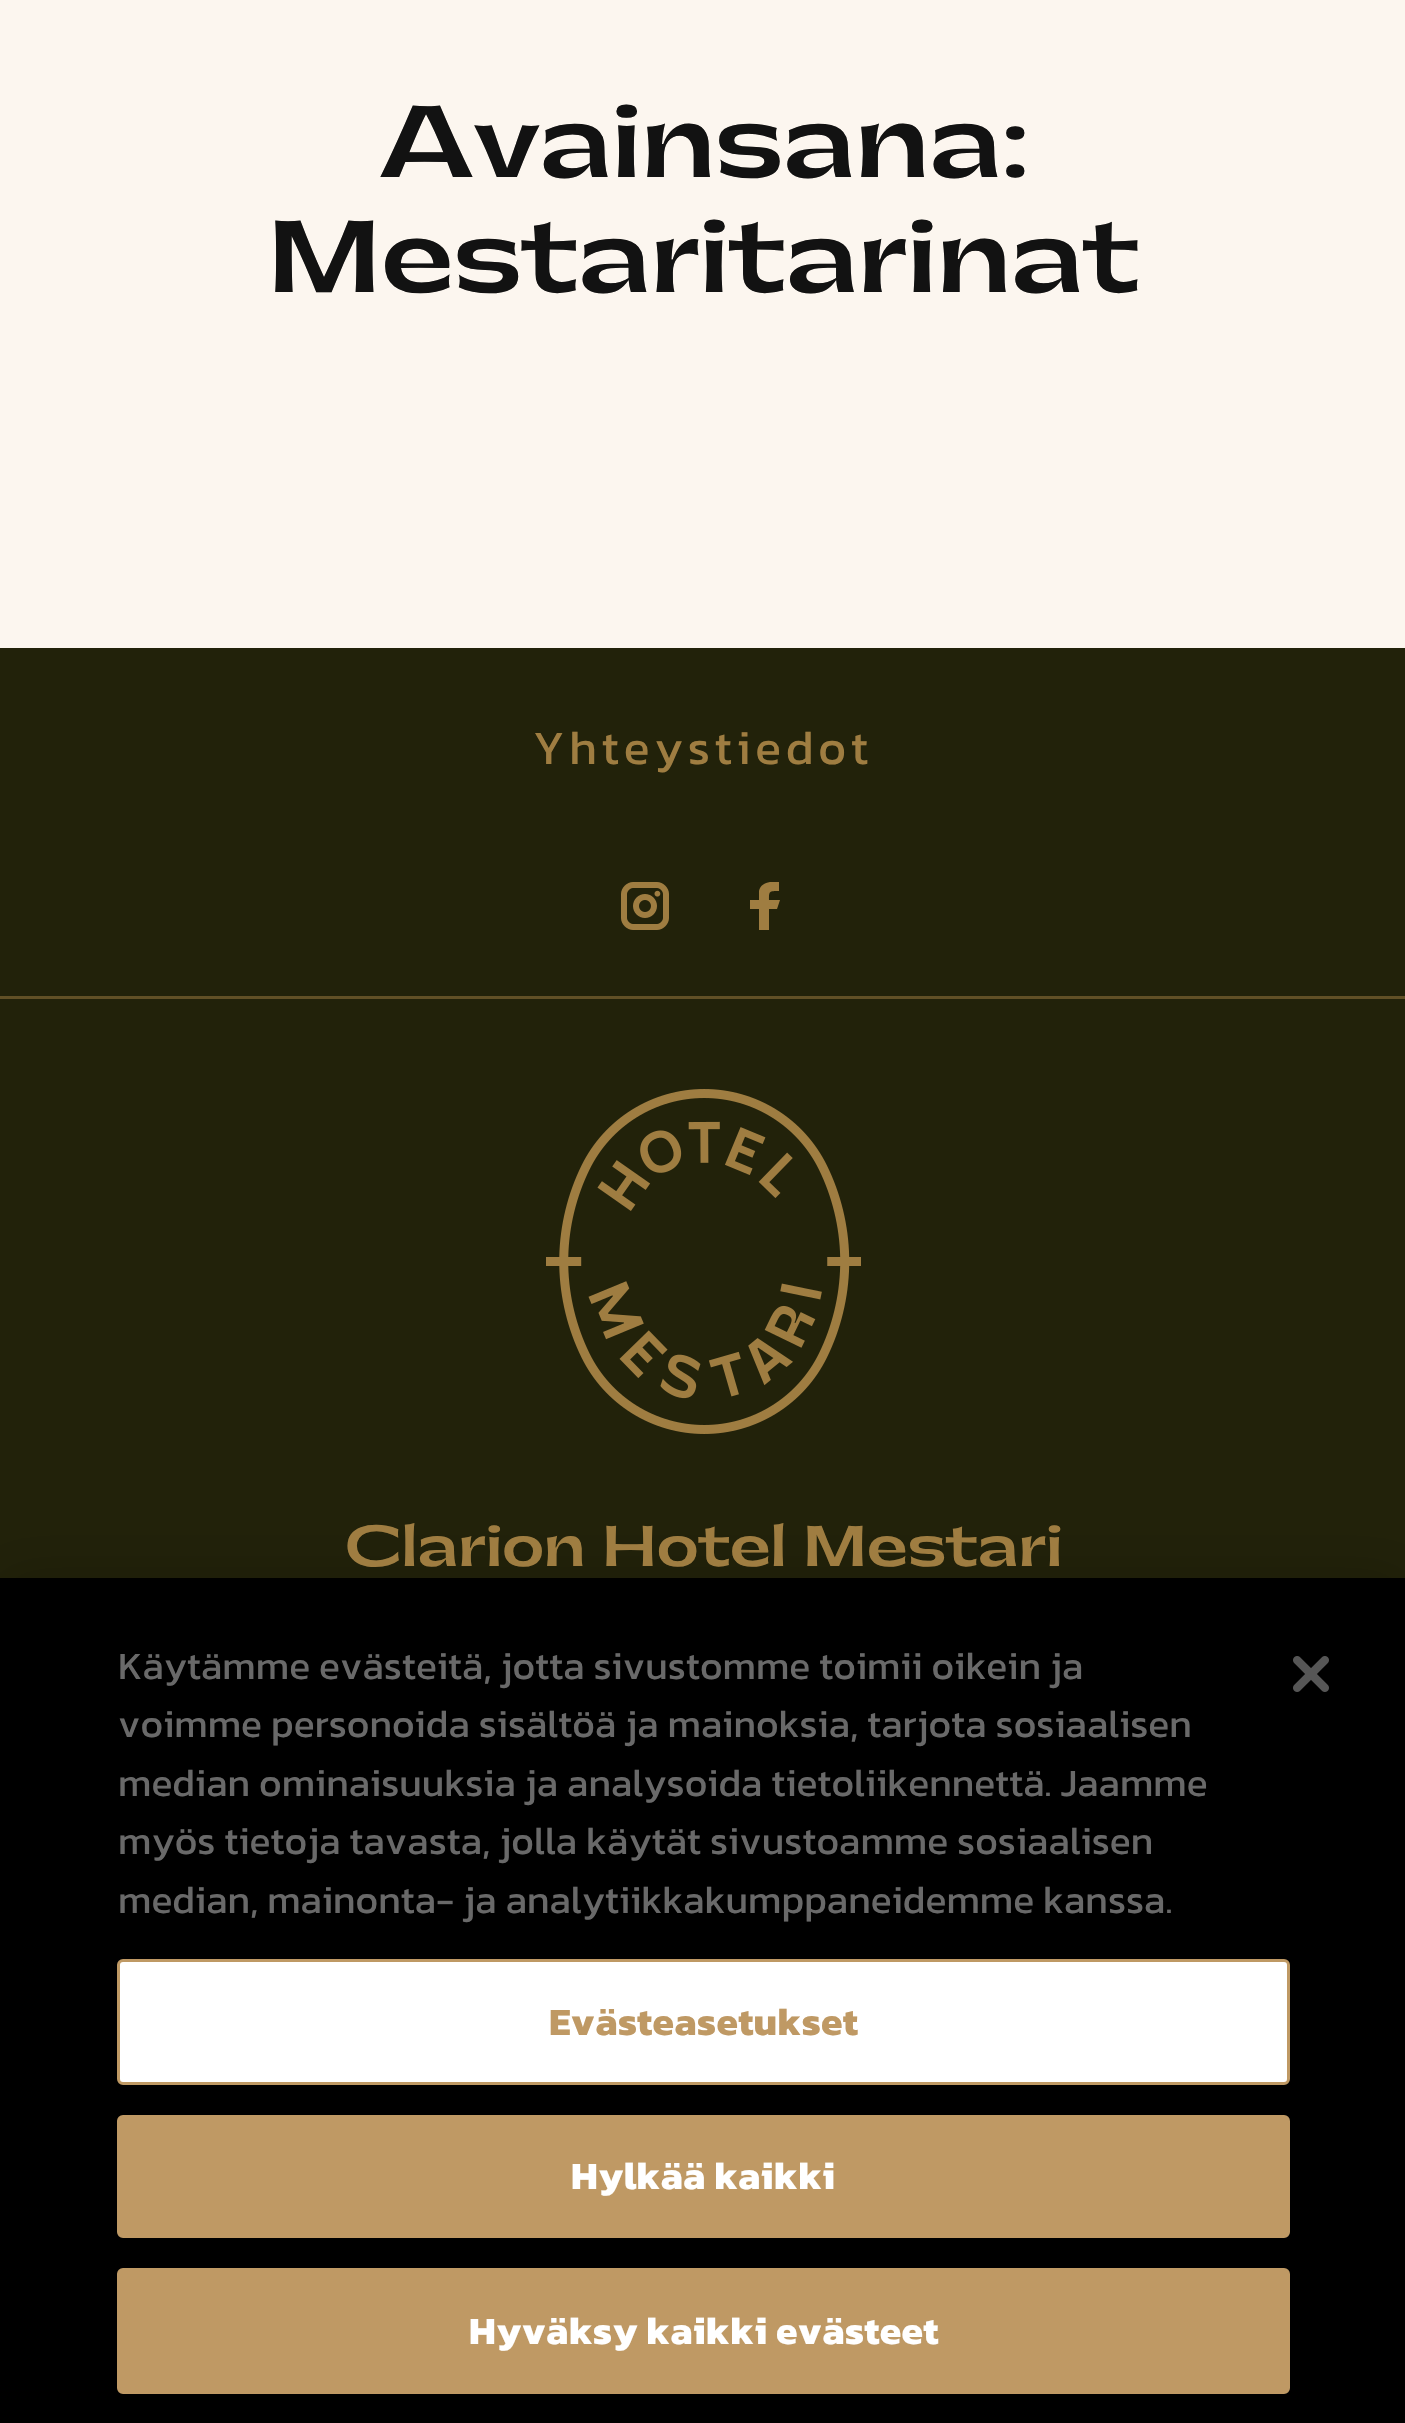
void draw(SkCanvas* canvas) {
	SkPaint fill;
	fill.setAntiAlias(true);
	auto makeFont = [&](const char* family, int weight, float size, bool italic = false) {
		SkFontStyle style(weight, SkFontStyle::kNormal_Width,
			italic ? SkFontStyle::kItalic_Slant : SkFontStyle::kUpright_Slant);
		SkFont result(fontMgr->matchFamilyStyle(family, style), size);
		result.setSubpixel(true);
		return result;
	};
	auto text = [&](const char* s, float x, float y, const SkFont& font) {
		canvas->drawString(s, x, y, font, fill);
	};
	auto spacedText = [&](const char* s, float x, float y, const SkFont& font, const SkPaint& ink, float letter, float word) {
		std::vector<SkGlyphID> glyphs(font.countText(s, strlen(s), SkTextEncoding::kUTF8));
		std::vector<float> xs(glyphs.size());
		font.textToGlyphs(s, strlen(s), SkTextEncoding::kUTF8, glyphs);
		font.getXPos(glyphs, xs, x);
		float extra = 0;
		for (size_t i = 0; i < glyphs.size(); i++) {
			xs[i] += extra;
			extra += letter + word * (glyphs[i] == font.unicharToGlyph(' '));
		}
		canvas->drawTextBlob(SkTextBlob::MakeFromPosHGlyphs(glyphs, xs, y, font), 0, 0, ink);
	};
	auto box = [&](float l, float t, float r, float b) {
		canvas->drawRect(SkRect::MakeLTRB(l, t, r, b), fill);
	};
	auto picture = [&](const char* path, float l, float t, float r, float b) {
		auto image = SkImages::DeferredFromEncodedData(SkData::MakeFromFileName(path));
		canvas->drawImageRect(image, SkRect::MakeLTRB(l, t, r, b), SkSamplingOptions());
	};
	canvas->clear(0xFFFCF6EF);
	fill.setColor(0xFF22220A);
	box(0, 648, 1405, 1578);
	fill.setColor(0xFF615026);
	box(0, 996, 1405, 999);
	picture("image0.png", 621, 882, 669, 930);
	canvas->save();
	canvas->clipRect(SkRect::MakeLTRB(741, 882, 789, 930));
	fill.setColor(0xFF9F7D41);
	canvas->drawPath(SkPathBuilder().moveTo(759, 930).lineTo(759, 909).lineTo(750, 909).lineTo(750, 900).lineTo(759, 900).lineTo(759, 891).cubicTo(761, 882, 771, 881, 779, 882).lineTo(779, 891).cubicTo(769, 891, 769, 891, 769, 900).lineTo(780, 900).lineTo(777, 909).lineTo(769, 909).lineTo(769, 930).close().detach(), fill);
	canvas->restore();
	picture("image1.png", 546, 1089, 861, 1434);
	fill.setColor(0x33000000);
	fill.setMaskFilter(SkMaskFilter::MakeBlur(kNormal_SkBlurStyle, 27));
	canvas->drawRect(SkRect::MakeLTRB(0, 1578, 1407, 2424), fill);
	fill.setMaskFilter(nullptr);
	fill.setColor(0xFF000000);
	box(0, 1578, 1405, 2423);
	fill.setColor(0xFFFFFFFF);
	canvas->drawRoundRect(SkRect::MakeLTRB(118.5f, 1960.5f, 1288.5f, 2083.5f), 4.5f, 4.5f, fill);
	fill.setStyle(SkPaint::kStroke_Style);
	fill.setStrokeWidth(3);
	fill.setColor(0xFFBF9964);
	canvas->drawRoundRect(SkRect::MakeLTRB(118.5f, 1960.5f, 1288.5f, 2083.5f), 4.5f, 4.5f, fill);
	fill.setStyle(SkPaint::kFill_Style);
	canvas->drawRoundRect(SkRect::MakeLTRB(118.5f, 2116.5f, 1288.5f, 2236.5f), 4.5f, 4.5f, fill);
	fill.setStyle(SkPaint::kStroke_Style);
	canvas->drawRoundRect(SkRect::MakeLTRB(118.5f, 2116.5f, 1288.5f, 2236.5f), 4.5f, 4.5f, fill);
	fill.setStyle(SkPaint::kFill_Style);
	canvas->drawRoundRect(SkRect::MakeLTRB(118.5f, 2269.5f, 1288.5f, 2392.5f), 4.5f, 4.5f, fill);
	fill.setStyle(SkPaint::kStroke_Style);
	canvas->drawRoundRect(SkRect::MakeLTRB(118.5f, 2269.5f, 1288.5f, 2392.5f), 4.5f, 4.5f, fill);
	picture("image2.png", 1293, 1656, 1329, 1692);
	auto font1 = makeFont("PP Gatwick", 700, 96);
	fill.setStyle(SkPaint::kFill_Style);
	fill.setColor(0xFF121212);
	text("Avainsana:", 379, 177, font1);
	text("Mestaritarinat", 267, 292, font1);
	auto font2 = makeFont("Kanit", 400, 48);
	fill.setColor(0xFF9F7D41);
	spacedText("Yhteystiedot", 533, 764, font2, fill, 4.75f, 0);
	auto font3 = makeFont("PP Gatwick", 700, 54);
	text("Clarion Hotel Mestari", 345, 1566, font3);
	auto font4 = makeFont("Kanit", 400, 39);
	fill.setColor(0xFF696969);
	text("Käytämme evästeitä, jotta sivustomme toimii oikein ja", 118, 1679, font4);
	text("voimme personoida sisältöä ja mainoksia, tarjota sosiaalisen", 118, 1737, font4);
	text("median ominaisuuksia ja analysoida tietoliikennettä. Jaamme", 118, 1796, font4);
	text("myös tietoja tavasta, jolla käytät sivustoamme sosiaalisen", 118, 1854, font4);
	text("median, mainonta- ja analytiikkakumppaneidemme kanssa.", 118, 1913, font4);
	auto font5 = makeFont("Kanit", 700, 39);
	fill.setColor(0xFFBF9964);
	spacedText("Evästeasetukset", 549, 2035, font5, fill, 0.4f, 0);
	fill.setColor(0xFFFFFFFF);
	spacedText("Hylkää kaikki", 571, 2189, font5, fill, 0.4f, 0);
	spacedText("Hyväksy kaikki evästeet", 469, 2344, font5, fill, 0.4f, 0);
}
